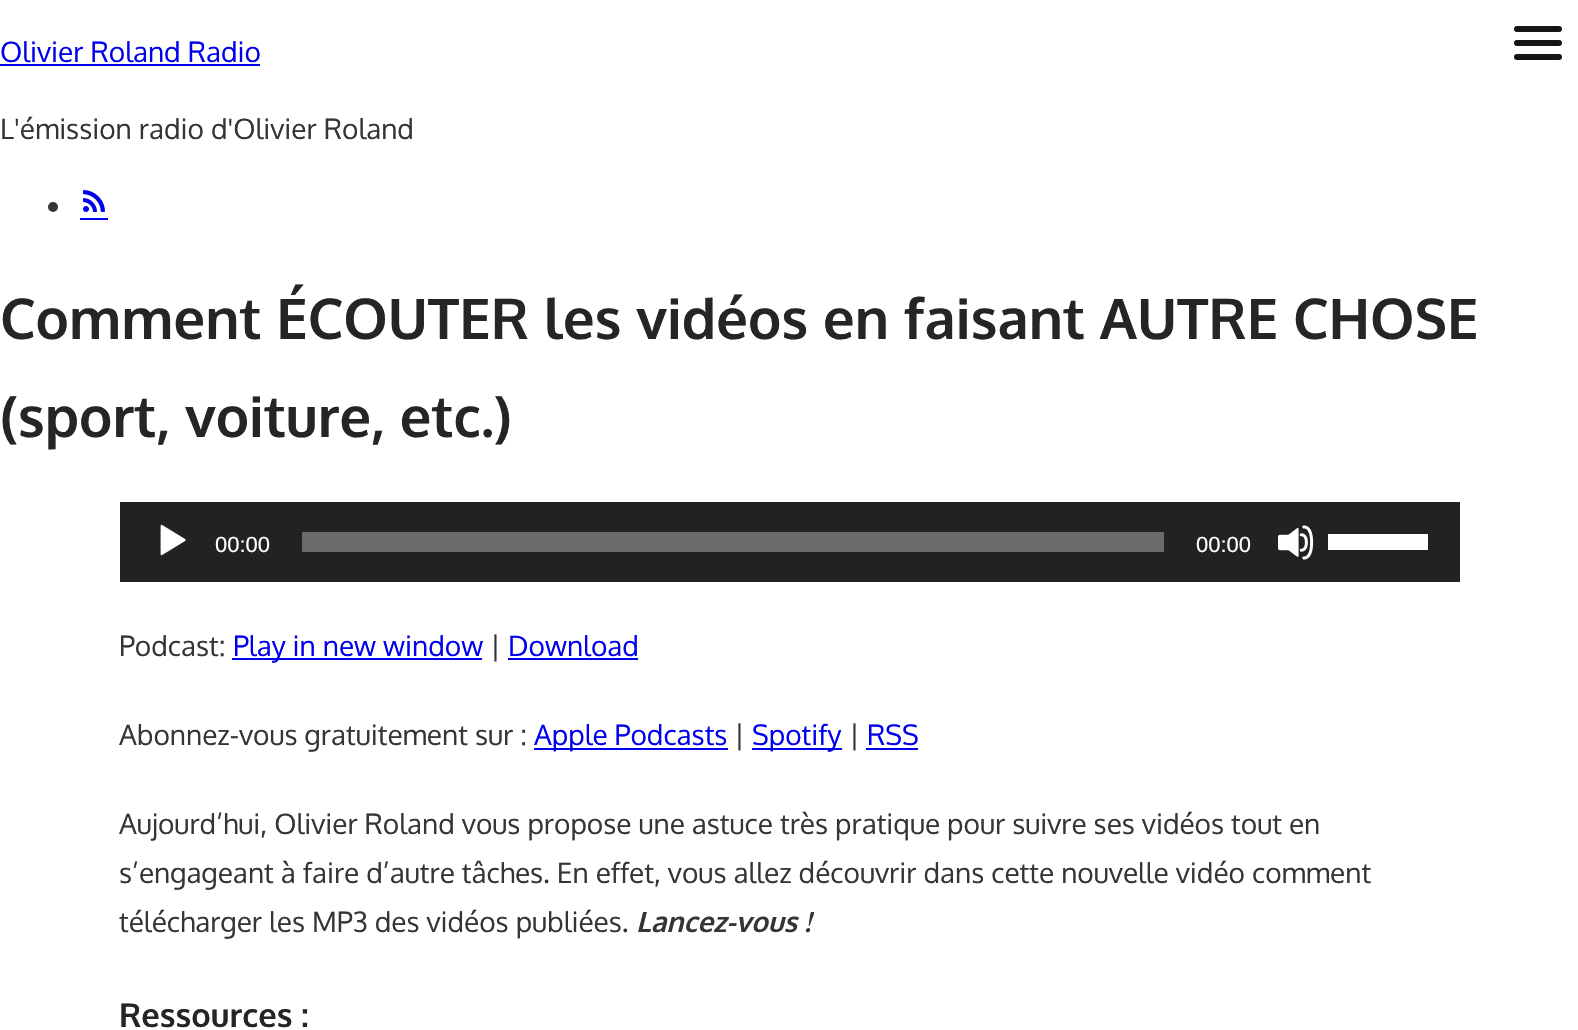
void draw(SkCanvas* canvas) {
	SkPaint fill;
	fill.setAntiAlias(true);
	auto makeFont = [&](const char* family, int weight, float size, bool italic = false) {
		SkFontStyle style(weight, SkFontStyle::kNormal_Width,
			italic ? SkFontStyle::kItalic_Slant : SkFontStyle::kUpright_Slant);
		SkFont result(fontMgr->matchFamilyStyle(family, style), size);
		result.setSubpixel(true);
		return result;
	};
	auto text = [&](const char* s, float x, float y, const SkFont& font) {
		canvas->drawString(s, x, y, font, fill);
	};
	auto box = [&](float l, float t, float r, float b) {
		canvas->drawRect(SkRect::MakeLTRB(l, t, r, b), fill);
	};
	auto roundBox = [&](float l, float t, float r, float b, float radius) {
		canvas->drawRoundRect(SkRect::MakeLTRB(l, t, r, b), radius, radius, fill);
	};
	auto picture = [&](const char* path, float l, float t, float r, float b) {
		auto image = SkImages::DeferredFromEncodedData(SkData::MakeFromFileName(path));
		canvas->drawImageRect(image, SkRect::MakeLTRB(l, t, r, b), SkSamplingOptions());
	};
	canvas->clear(0xFFFFFFFF);
	fill.setColor(0xFF0000EE);
	box(0, 64, 260, 66);
	fill.setColor(0xFF353535);
	canvas->drawCircle(53, 207, 5, fill);
	picture("image0.png", 83, 190, 105, 212);
	fill.setColor(0xFF0000EE);
	box(80, 218, 108, 220);
	fill.setColor(0xFF151515);
	roundBox(1514, 40, 1562, 46, 3);
	roundBox(1514, 26, 1562, 32, 3);
	roundBox(1514, 54, 1562, 60, 3);
	fill.setColor(0xFF222222);
	box(120, 502, 1460, 582);
	picture("image1.png", 160, 524, 186, 556);
	fill.setColor(0xFF6B6B6B);
	box(302, 532, 1164, 552);
	picture("image2.png", 1278, 525, 1314, 560);
	fill.setColor(0xFFFFFFFF);
	box(1328, 534, 1428, 550);
	fill.setColor(0xFF0000EE);
	box(232, 658, 482, 660);
	box(508, 658, 638, 660);
	box(534, 748, 728, 750);
	box(752, 748, 842, 750);
	box(866, 748, 918, 750);
	auto font1 = makeFont("Oxygen", 400, 28);
	text("Olivier Roland Radio", 0, 62, font1);
	fill.setColor(0xFF353535);
	text("L'émission radio d'Olivier Roland", 0, 139, font1);
	auto font2 = makeFont("Oxygen", 700, 56);
	fill.setColor(0xFF252525);
	text("Comment ÉCOUTER les vidéos en faisant AUTRE CHOSE", 0, 339, font2);
	text("(sport, voiture, etc.)", 0, 437, font2);
	auto font3 = makeFont("Liberation Sans", 400, 22);
	fill.setColor(0xFFFFFFFF);
	text("00:00", 215, 552, font3);
	text("00:00", 1196, 552, font3);
	fill.setColor(0xFF353535);
	text("Podcast:", 119, 656, font1);
	fill.setColor(0xFF0000EE);
	text("Play in new window", 233, 656, font1);
	fill.setColor(0xFF353535);
	text("|", 490, 656, font1);
	fill.setColor(0xFF0000EE);
	text("Download", 508, 656, font1);
	fill.setColor(0xFF353535);
	text("Abonnez-vous gratuitement sur :", 119, 745, font1);
	fill.setColor(0xFF0000EE);
	text("Apple Podcasts", 534, 745, font1);
	fill.setColor(0xFF353535);
	text("|", 734, 745, font1);
	fill.setColor(0xFF0000EE);
	text("Spotify", 752, 745, font1);
	fill.setColor(0xFF353535);
	text("|", 849, 745, font1);
	fill.setColor(0xFF0000EE);
	text("RSS", 867, 745, font1);
	fill.setColor(0xFF353535);
	text("Aujourd’hui, Olivier Roland vous propose une astuce très pratique pour suivre ses vidéos tout en", 119, 834, font1);
	text("s’engageant à faire d’autre tâches. En effet, vous allez découvrir dans cette nouvelle vidéo comment", 119, 883, font1);
	text("télécharger les MP3 des vidéos publiées.", 119, 932, font1);
	auto font4 = makeFont("Oxygen", 700, 28, true);
	text("Lancez-vous !", 636, 932, font4);
	auto font5 = makeFont("Oxygen", 700, 32.75f);
	fill.setColor(0xFF252525);
	text("Ressources :", 119, 1027, font5);
}
